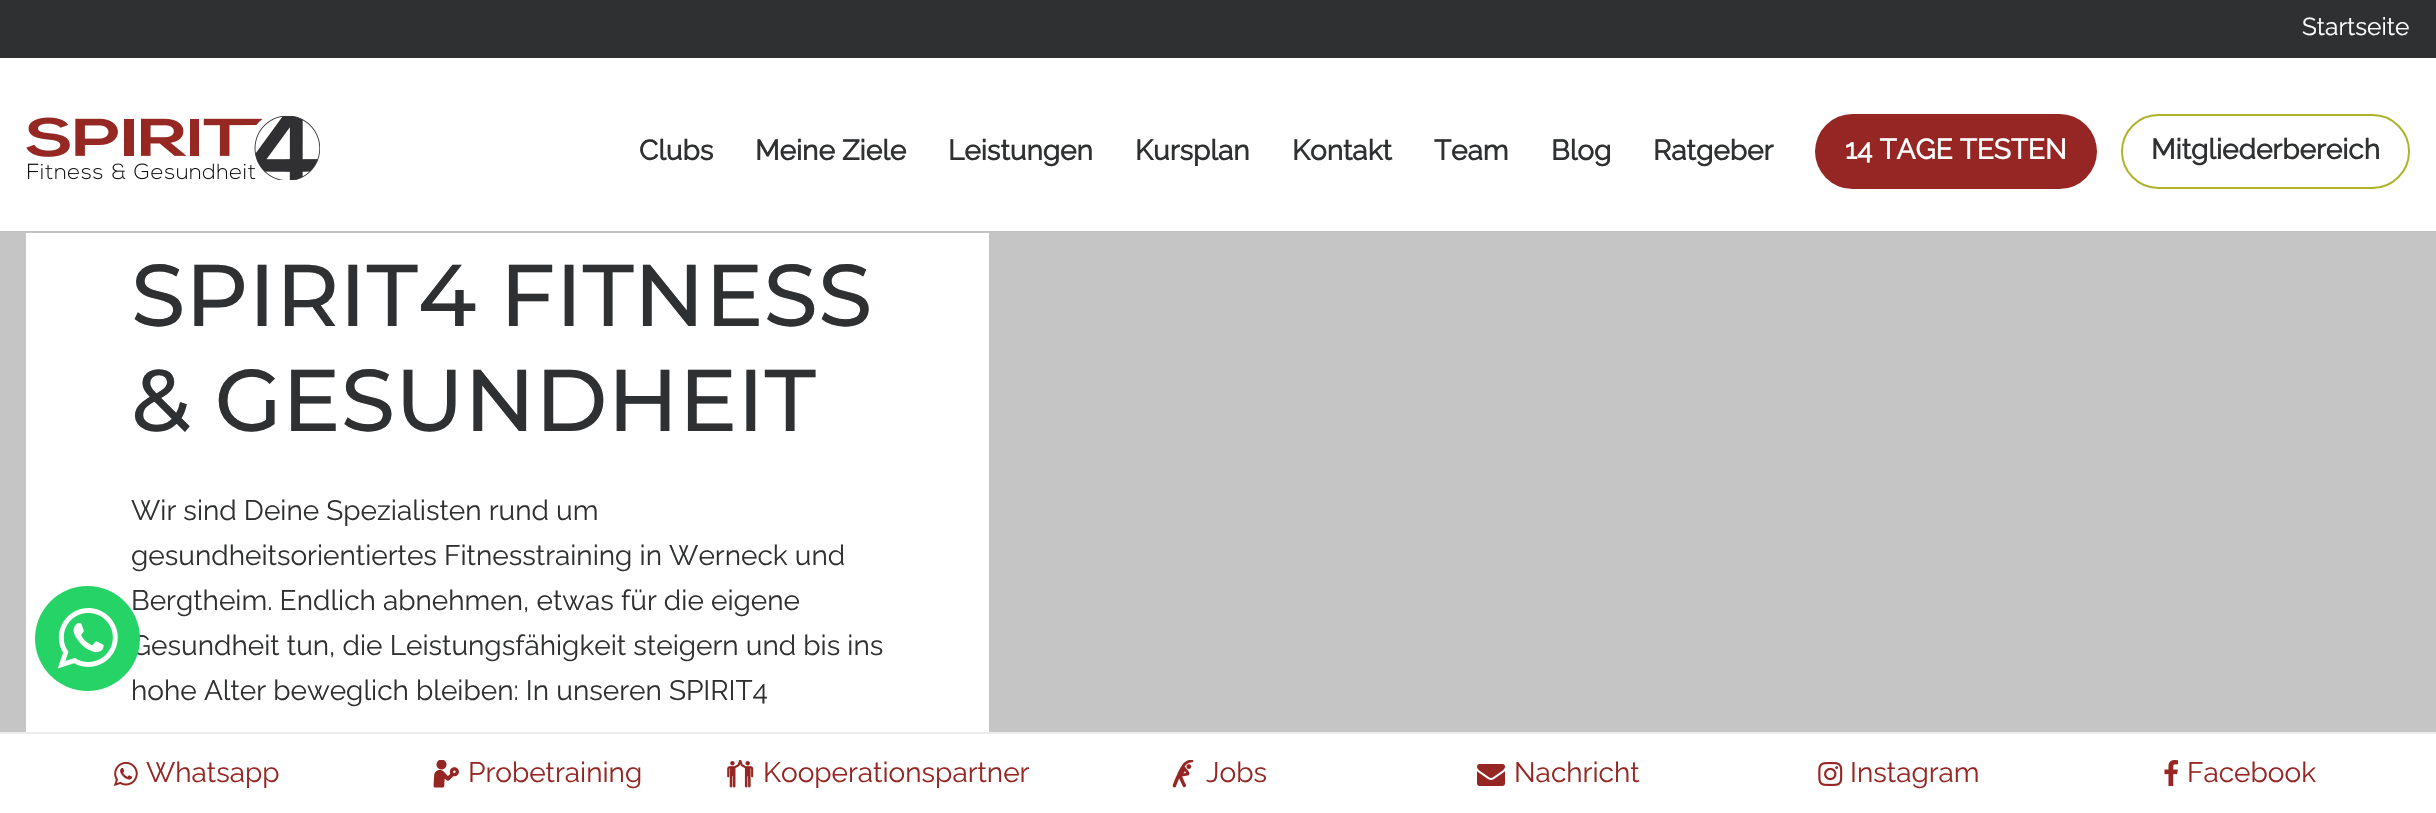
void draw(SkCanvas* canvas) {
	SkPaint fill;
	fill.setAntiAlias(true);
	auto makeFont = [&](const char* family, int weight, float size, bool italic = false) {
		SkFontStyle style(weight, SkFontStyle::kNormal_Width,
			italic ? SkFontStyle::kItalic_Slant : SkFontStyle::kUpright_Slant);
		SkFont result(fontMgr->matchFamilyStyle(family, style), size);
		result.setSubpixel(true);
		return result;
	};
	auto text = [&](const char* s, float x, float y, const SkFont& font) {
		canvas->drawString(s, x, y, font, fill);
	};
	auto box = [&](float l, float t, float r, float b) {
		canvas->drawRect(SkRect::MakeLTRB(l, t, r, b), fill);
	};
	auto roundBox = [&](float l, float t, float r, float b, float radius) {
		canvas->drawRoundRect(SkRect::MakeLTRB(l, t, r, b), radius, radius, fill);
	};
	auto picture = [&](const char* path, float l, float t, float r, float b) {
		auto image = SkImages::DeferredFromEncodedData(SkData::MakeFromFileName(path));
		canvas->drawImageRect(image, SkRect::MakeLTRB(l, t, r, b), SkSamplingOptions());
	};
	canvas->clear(0xFFC5C5C5);
	fill.setColor(0xFF2F3031);
	box(0, 0, 2436, 58);
	fill.setColor(0xFFFFFFFF);
	box(0, 58, 2436, 231);
	picture("image0.png", 26, 116, 320, 180);
	fill.setColor(0xFF962623);
	roundBox(1815, 114, 2097, 189, 37.5f);
	fill.setStyle(SkPaint::kStroke_Style);
	fill.setStrokeWidth(2);
	fill.setColor(0xFFAEB229);
	canvas->drawRoundRect(SkRect::MakeLTRB(2122, 115, 2409, 188), 36.5f, 36.5f, fill);
	fill.setStyle(SkPaint::kFill_Style);
	fill.setColor(0xFFFFFFFF);
	box(26, 233, 989, 732);
	box(0, 734, 2436, 813);
	fill.setColor(0xFFEDEDED);
	box(0, 732, 2436, 734);
	picture("image2.png", 113, 761, 138, 786);
	picture("image3.png", 433, 760, 459, 788);
	picture("image4.png", 727, 760, 754, 788);
	picture("image5.png", 1172, 760, 1194, 788);
	picture("image6.png", 1477, 764, 1505, 786);
	picture("image7.png", 1818, 762, 1843, 786);
	picture("image8.png", 2164, 760, 2178, 786);
	auto font1 = makeFont("Raleway", 100, 24.5f);
	fill.setColor(0xFFFFFFFF);
	text("Startseite", 2302, 35, font1);
	auto font2 = makeFont("Raleway", 700, 28);
	fill.setColor(0xFF2F3031);
	text("Clubs", 639, 160, font2);
	text("Meine Ziele", 755, 160, font2);
	text("Leistungen", 948, 160, font2);
	text("Kursplan", 1135, 160, font2);
	text("Kontakt", 1292, 160, font2);
	text("Team", 1434, 160, font2);
	text("Blog", 1551, 160, font2);
	text("Ratgeber", 1653, 160, font2);
	fill.setColor(0xFFFFFFFF);
	text("14 TAGE TESTEN", 1845, 159, font2);
	fill.setColor(0xFF2F3031);
	text("Mitgliederbereich", 2151, 159, font2);
	auto font3 = makeFont("Montserrat", 100, 87.5f);
	text("SPIRIT4 FITNESS", 131, 326, font3);
	text("& GESUNDHEIT", 131, 431, font3);
	auto font4 = makeFont("Raleway", 100, 28);
	text("Wir sind Deine Spezialisten rund um", 131, 520, font4);
	text("gesundheitsorientiertes Fitnesstraining in Werneck und", 131, 565, font4);
	text("Bergtheim. Endlich abnehmen, etwas für die eigene", 131, 610, font4);
	text("Gesundheit tun, die Leistungsfähigkeit steigern und bis ins", 131, 655, font4);
	text("hohe Alter beweglich bleiben: In unseren SPIRIT4", 131, 700, font4);
	fill.setColor(0xFF25D366);
	canvas->drawCircle(87.5f, 638.5f, 52.5f, fill);
	picture("image1.png", 57, 608, 118, 669);
	fill.setColor(0xFF962623);
	text("Whatsapp", 146, 782, font4);
	text("Probetraining", 468, 782, font4);
	text("Kooperationspartner", 763, 782, font4);
	text("Jobs", 1206, 782, font4);
	text("Nachricht", 1514, 782, font4);
	text("Instagram", 1850, 782, font4);
	text("Facebook", 2187, 782, font4);
}
